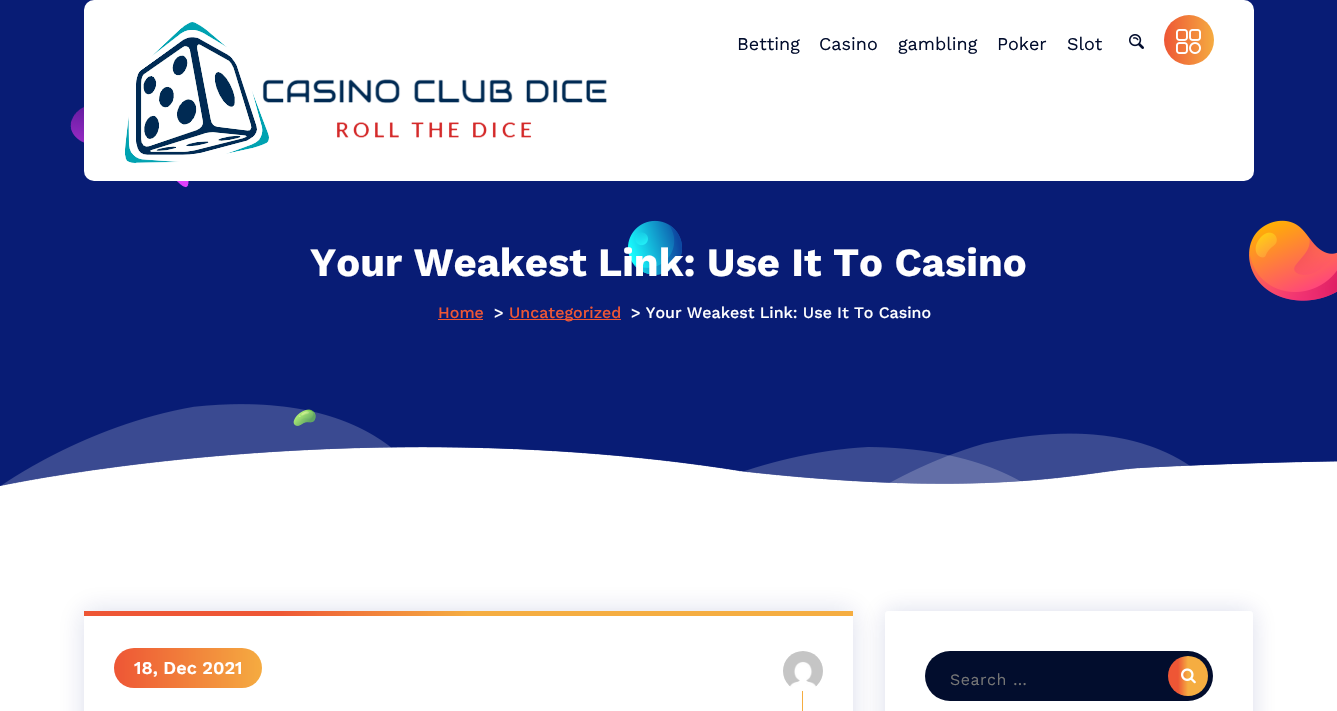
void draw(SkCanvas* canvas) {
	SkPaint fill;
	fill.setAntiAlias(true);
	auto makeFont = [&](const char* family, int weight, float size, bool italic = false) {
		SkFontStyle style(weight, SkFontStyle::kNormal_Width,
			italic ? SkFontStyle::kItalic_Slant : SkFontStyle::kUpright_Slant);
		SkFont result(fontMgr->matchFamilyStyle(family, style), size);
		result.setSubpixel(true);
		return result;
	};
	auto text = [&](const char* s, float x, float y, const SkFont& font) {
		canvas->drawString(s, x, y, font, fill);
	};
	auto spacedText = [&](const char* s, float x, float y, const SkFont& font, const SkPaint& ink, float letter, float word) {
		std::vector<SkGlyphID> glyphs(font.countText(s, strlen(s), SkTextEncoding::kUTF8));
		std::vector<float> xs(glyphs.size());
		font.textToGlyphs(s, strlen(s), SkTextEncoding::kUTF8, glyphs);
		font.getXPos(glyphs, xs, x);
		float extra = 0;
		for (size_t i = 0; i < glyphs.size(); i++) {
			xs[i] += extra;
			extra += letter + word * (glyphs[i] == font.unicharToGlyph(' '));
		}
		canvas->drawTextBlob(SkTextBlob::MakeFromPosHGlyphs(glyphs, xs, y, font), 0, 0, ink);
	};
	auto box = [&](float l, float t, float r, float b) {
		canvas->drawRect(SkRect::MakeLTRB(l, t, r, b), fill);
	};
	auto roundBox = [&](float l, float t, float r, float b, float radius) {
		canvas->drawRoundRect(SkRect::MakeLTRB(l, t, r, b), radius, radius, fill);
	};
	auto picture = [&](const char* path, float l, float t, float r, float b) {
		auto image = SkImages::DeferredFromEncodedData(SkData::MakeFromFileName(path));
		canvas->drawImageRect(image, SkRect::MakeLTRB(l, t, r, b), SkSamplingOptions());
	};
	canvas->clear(0xFFFFFFFF);
	fill.setColor(0xFF081C75);
	box(0, 0, 1337, 486);
	picture("image4.png", 70, 106, 316, 426);
	fill.setColor(0xFFFFFFFF);
	roundBox(84, 0, 1254, 181, 10);
	picture("image0.png", 125, 22, 607, 164);
	picture("image1.png", 1129, 34, 1144, 49);
	{
		const SkColor colors[] = {0xFFEE5635, 0xFFF5AD41, 0xFFEE5635};
		const float stops[] = {0, 0.51f, 1};
		const SkPoint ends[] = {{1164, 40}, {1264, 40}};
		fill.setShader(SkGradientShader::MakeLinear(ends, colors, stops, 3, SkTileMode::kClamp));
		fill.setAlpha(255);
	}
	canvas->drawCircle(1189, 40, 25, fill);
	picture("image2.png", 1176, 29, 1201, 54);
	picture("image3.png", 0, 447, 1337, 491);
	picture("image5.png", 628, 220, 682, 275);
	picture("image6.png", 1249, 220, 1337, 301);
	fill.setShader(nullptr);
	fill.setColor(0xFFEE5635);
	box(438, 319, 483, 320);
	box(509, 319, 621, 320);
	picture("image7.png", 1, 404, 1190, 486);
	fill.setColor(0x26091D76);
	fill.setMaskFilter(SkMaskFilter::MakeBlur(kNormal_SkBlurStyle, 12.5f));
	canvas->drawRoundRect(SkRect::MakeLTRB(885, 611, 1253, 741), 3, 3, fill);
	fill.setMaskFilter(nullptr);
	fill.setColor(0xFFFFFFFF);
	roundBox(885, 611, 1253, 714, 3);
	canvas->save();
	canvas->clipPath(SkPathBuilder(SkPathFillType::kEvenOdd).moveTo(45, 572).lineTo(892, 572).lineTo(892, 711).lineTo(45, 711).close().moveTo(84, 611).lineTo(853, 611).lineTo(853, 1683).lineTo(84, 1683).close().detach(), true);
	fill.setColor(0x26091D76);
	fill.setMaskFilter(SkMaskFilter::MakeBlur(kNormal_SkBlurStyle, 12.5f));
	canvas->drawRect(SkRect::MakeLTRB(84, 611, 853, 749), fill);
	fill.setMaskFilter(nullptr);
	canvas->restore();
	{
		const SkColor colors[] = {0xFFEE5635, 0xFFEE5635, 0xFFF5AD41, 0xFFF5AD41};
		const float stops[] = {0, 0.25f, 0.5f, 1};
		const SkPoint ends[] = {{84, 614}, {853, 614}};
		fill.setShader(SkGradientShader::MakeLinear(ends, colors, stops, 4, SkTileMode::kClamp));
		fill.setAlpha(255);
	}
	box(84, 611, 853, 616);
	{
		const SkColor colors[] = {0xFFEE5635, 0xFFF5AD41, 0xFFEE5635};
		const float stops[] = {0, 0.51f, 1};
		const SkPoint ends[] = {{114, 668}, {410, 668}};
		fill.setShader(SkGradientShader::MakeLinear(ends, colors, stops, 3, SkTileMode::kClamp));
		fill.setAlpha(255);
	}
	roundBox(114, 648, 262, 688, 20);
	fill.setShader(nullptr);
	fill.setColor(0xFFF5AD41);
	box(802, 690, 803, 711);
	picture("image8.png", 783, 651, 823, 691);
	fill.setColor(0xFF020D2D);
	roundBox(925, 651, 1213, 701, 25);
	{
		const SkColor colors[] = {0xFFEE5635, 0xFFEE5635, 0xFFF5AD41, 0xFFF5AD41};
		const float stops[] = {0, 0.25f, 0.5f, 1};
		const SkPoint ends[] = {{1168, 676}, {1208, 676}};
		fill.setShader(SkGradientShader::MakeLinear(ends, colors, stops, 4, SkTileMode::kClamp));
		fill.setAlpha(255);
	}
	canvas->drawCircle(1188, 676, 20, fill);
	picture("image9.png", 1181, 668, 1196, 684);
	auto font1 = makeFont("Work Sans", 400, 18);
	fill.setShader(nullptr);
	fill.setColor(0xFF020D2D);
	text("Betting", 737, 50, font1);
	text("Casino", 819, 50, font1);
	text("gambling", 898, 50, font1);
	text("Poker", 997, 50, font1);
	text("Slot", 1067, 50, font1);
	auto font2 = makeFont("Work Sans", 700, 40);
	fill.setColor(0xFFFFFFFF);
	text("Your Weakest Link: Use It To Casino", 310, 276, font2);
	auto font3 = makeFont("Work Sans", 500, 16);
	fill.setColor(0xFFEE5635);
	text("Home", 438, 318, font3);
	fill.setColor(0xFFFFFFFF);
	text(">", 494, 318, font3);
	fill.setColor(0xFFEE5635);
	text("Uncategorized", 509, 318, font3);
	fill.setColor(0xFFFFFFFF);
	text("> Your Weakest Link: Use It To Casino", 631, 318, font3);
	auto font4 = makeFont("Work Sans", 600, 18);
	text("18, Dec 2021", 134, 674, font4);
	auto font5 = makeFont("Work Sans", 400, 16);
	fill.setColor(0xFF757575);
	spacedText("Search …", 950, 685, font5, fill, 0.5f, 0);
}
